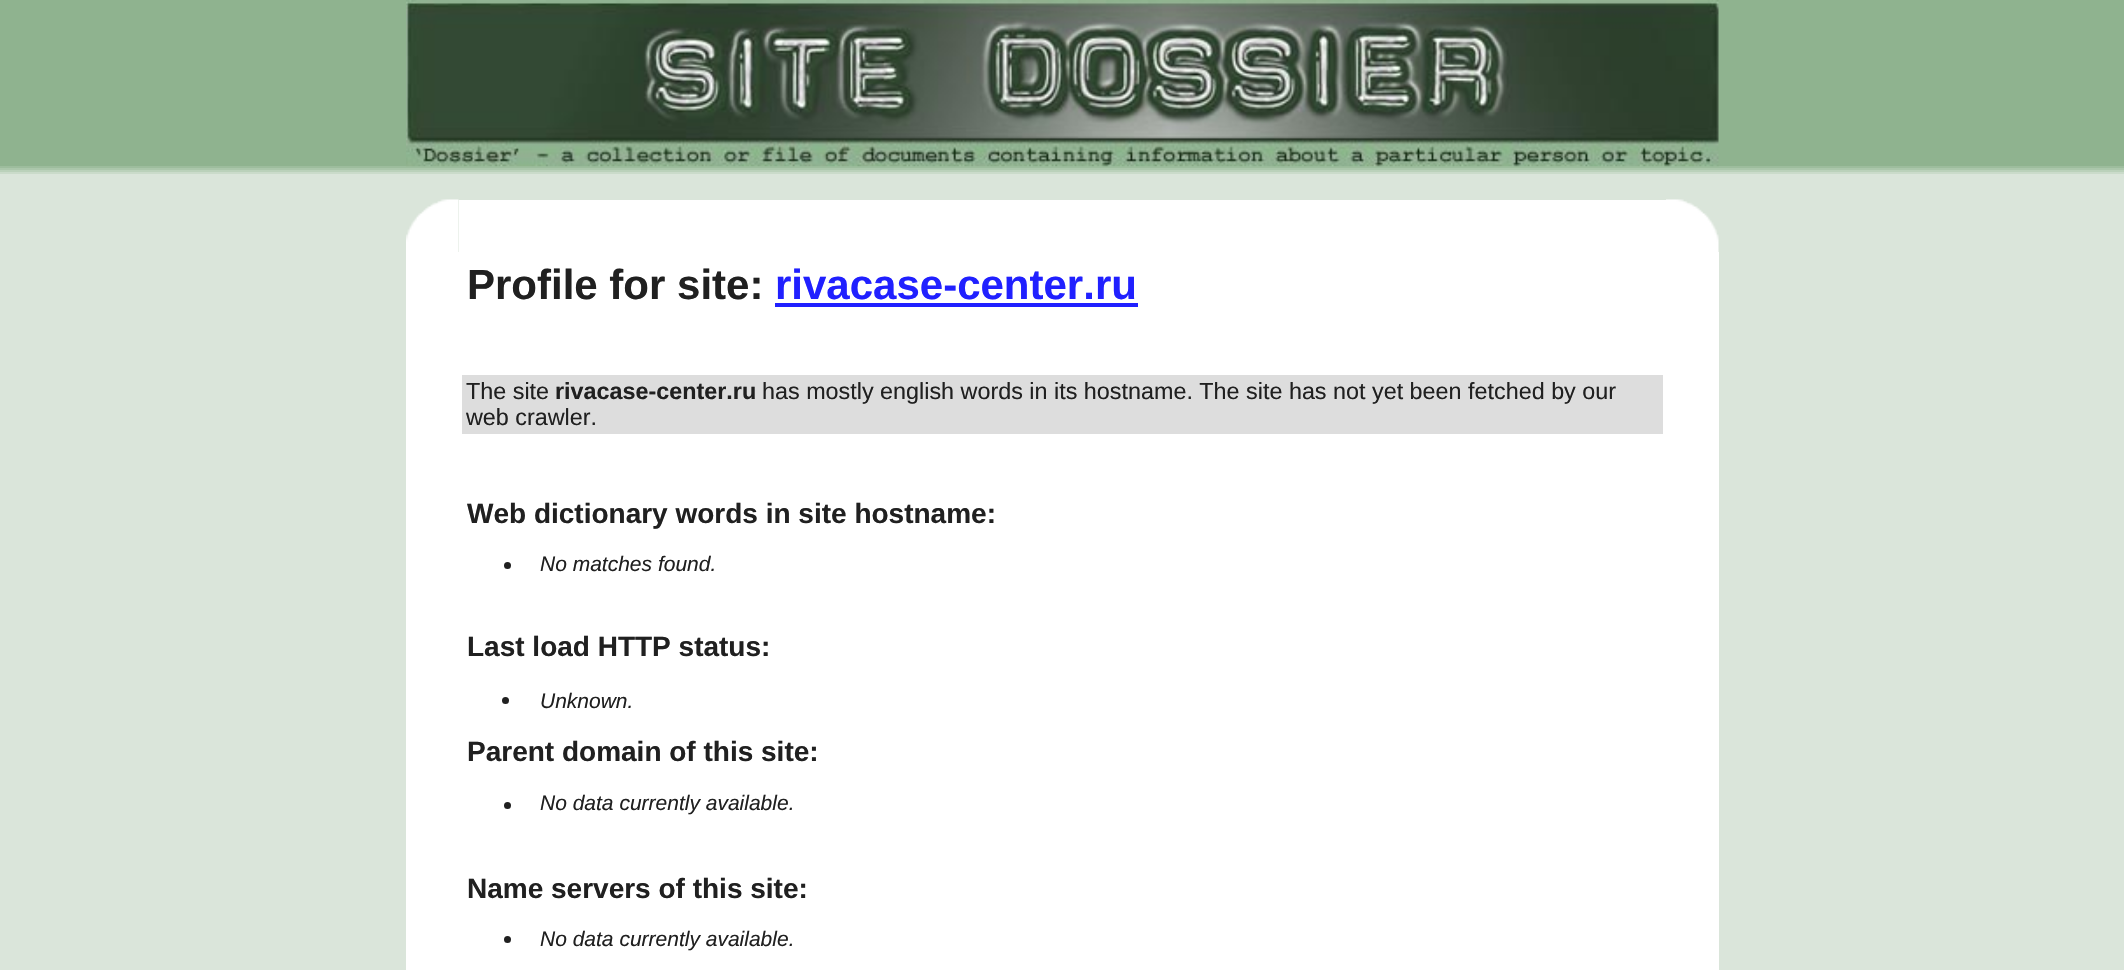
void draw(SkCanvas* canvas) {
	SkPaint fill;
	fill.setAntiAlias(true);
	auto makeFont = [&](const char* family, int weight, float size, bool italic = false) {
		SkFontStyle style(weight, SkFontStyle::kNormal_Width,
			italic ? SkFontStyle::kItalic_Slant : SkFontStyle::kUpright_Slant);
		SkFont result(fontMgr->matchFamilyStyle(family, style), size);
		result.setSubpixel(true);
		return result;
	};
	auto text = [&](const char* s, float x, float y, const SkFont& font) {
		canvas->drawString(s, x, y, font, fill);
	};
	auto box = [&](float l, float t, float r, float b) {
		canvas->drawRect(SkRect::MakeLTRB(l, t, r, b), fill);
	};
	auto picture = [&](const char* path, float l, float t, float r, float b) {
		auto image = SkImages::DeferredFromEncodedData(SkData::MakeFromFileName(path));
		canvas->drawImageRect(image, SkRect::MakeLTRB(l, t, r, b), SkSamplingOptions());
	};
	canvas->clear(0xFFDAE5DA);
	fill.setColor(0xFF8FB38F);
	box(0, 0, 2124, 166);
	fill.setColor(0xFF9DBD9D);
	box(0, 166, 2124, 168);
	picture("image0.png", 406, 0, 1719, 167);
	fill.setColor(0xFFABC7AB);
	box(0, 168, 2124, 170);
	fill.setColor(0xFFBAD1BA);
	box(0, 170, 2124, 172);
	fill.setColor(0xFFCADBCA);
	box(0, 172, 2124, 174);
	picture("image1.png", 406, 199, 459, 252);
	fill.setColor(0xFFFFFFFF);
	box(459, 200, 1666, 252);
	picture("image2.png", 1666, 199, 1719, 252);
	box(406, 252, 1719, 970);
	fill.setColor(0xFF2020FF);
	box(775, 303, 1138, 307);
	fill.setColor(0xFFDDDDDD);
	box(462, 375, 1663, 434);
	fill.setColor(0xFF202020);
	canvas->drawCircle(507.5f, 565.5f, 3.5f, fill);
	canvas->drawCircle(505.5f, 700.5f, 3.5f, fill);
	canvas->drawCircle(507.5f, 805.5f, 3.5f, fill);
	canvas->drawCircle(507.5f, 939.5f, 3.5f, fill);
	auto font1 = makeFont("Liberation Sans", 700, 42);
	text("Profile for site:", 467, 299, font1);
	fill.setColor(0xFF2020FF);
	text("rivacase-center.ru", 775, 299, font1);
	auto font2 = makeFont("Liberation Sans", 400, 23.35f);
	fill.setColor(0xFF202020);
	text("The site", 466, 399, font2);
	auto font3 = makeFont("Liberation Sans", 700, 23.35f);
	text("rivacase-center.ru", 555, 399, font3);
	text("has mostly english words in its hostname. The site has not yet been fetched by our", 762, 399, font2);
	text("web crawler.", 466, 425, font2);
	auto font4 = makeFont("Liberation Sans", 700, 28);
	text("Web dictionary words in site hostname:", 467, 523, font4);
	auto font5 = makeFont("Liberation Sans", 400, 21, true);
	text("No matches found.", 540, 571, font5);
	text("Last load HTTP status:", 467, 656, font4);
	text("Unknown.", 540, 708, font5);
	text("Parent domain of this site:", 467, 761, font4);
	text("No data currently available.", 540, 810, font5);
	text("Name servers of this site:", 467, 898, font4);
	text("No data currently available.", 540, 946, font5);
}
